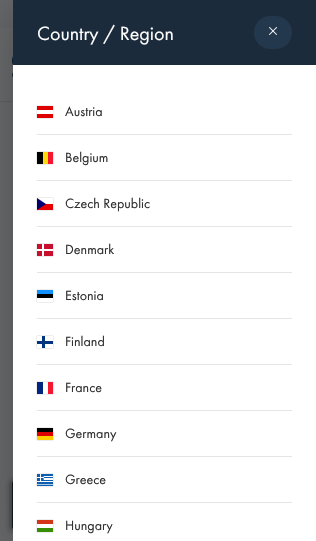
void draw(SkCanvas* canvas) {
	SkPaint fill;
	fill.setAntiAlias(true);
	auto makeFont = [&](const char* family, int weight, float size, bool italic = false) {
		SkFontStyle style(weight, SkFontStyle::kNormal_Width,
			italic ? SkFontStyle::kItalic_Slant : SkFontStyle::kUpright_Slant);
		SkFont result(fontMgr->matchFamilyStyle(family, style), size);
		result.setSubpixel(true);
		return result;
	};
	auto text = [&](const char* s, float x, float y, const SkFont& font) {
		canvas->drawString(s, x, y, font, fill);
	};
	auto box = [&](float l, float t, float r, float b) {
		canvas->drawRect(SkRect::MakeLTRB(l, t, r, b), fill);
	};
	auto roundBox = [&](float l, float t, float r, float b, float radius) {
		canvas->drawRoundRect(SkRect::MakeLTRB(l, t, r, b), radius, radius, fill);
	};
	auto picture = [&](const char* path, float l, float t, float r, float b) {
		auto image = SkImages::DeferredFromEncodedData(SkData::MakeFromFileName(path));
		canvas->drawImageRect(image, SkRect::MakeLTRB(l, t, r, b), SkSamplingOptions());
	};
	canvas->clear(0xFF68696A);
	fill.setColor(0xFF656667);
	box(0, 0, 13, 28);
	picture("image0.png", 12, 56, 13, 77);
	fill.setColor(0xFF5D5F60);
	box(0, 101, 13, 102);
	fill.setColor(0x80020304);
	fill.setMaskFilter(SkMaskFilter::MakeBlur(kNormal_SkBlurStyle, 3));
	canvas->drawRect(SkRect::MakeLTRB(11, 480, 61, 530), fill);
	fill.setMaskFilter(nullptr);
	picture("image5.png", 12, 481, 13, 529);
	fill.setColor(0x40000000);
	fill.setMaskFilter(SkMaskFilter::MakeBlur(kNormal_SkBlurStyle, 20));
	canvas->drawRect(SkRect::MakeLTRB(13, 10, 316, 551), fill);
	fill.setMaskFilter(nullptr);
	fill.setColor(0xFFFFFFFF);
	box(13, 65, 316, 541);
	fill.setColor(0xFF1B2B3B);
	box(13, 0, 316, 65);
	fill.setColor(0xFF23384D);
	roundBox(254, 16, 292, 49, 16.5f);
	picture("image1.png", 269, 27, 277, 35);
	fill.setColor(0xFFE5E5E5);
	box(37, 134, 292, 135);
	fill.setColor(0x66000000);
	fill.setMaskFilter(SkMaskFilter::MakeBlur(kNormal_SkBlurStyle, 0.5f));
	canvas->drawRect(SkRect::MakeLTRB(37, 106, 53, 118), fill);
	fill.setMaskFilter(nullptr);
	picture("image2.png", 37, 106, 53, 118);
	fill.setColor(0xFFE5E5E5);
	box(37, 180, 292, 181);
	fill.setColor(0x66000000);
	fill.setMaskFilter(SkMaskFilter::MakeBlur(kNormal_SkBlurStyle, 0.5f));
	canvas->drawRect(SkRect::MakeLTRB(37, 152, 53, 164), fill);
	fill.setMaskFilter(nullptr);
	fill.setColor(0xFF000000);
	box(37, 152, 43, 164);
	fill.setColor(0xFFFFD90C);
	box(43, 152, 48, 164);
	fill.setColor(0xFFF31830);
	box(48, 152, 53, 164);
	fill.setColor(0xFFE5E5E5);
	box(37, 226, 292, 227);
	fill.setColor(0x66000000);
	fill.setMaskFilter(SkMaskFilter::MakeBlur(kNormal_SkBlurStyle, 0.5f));
	canvas->drawRect(SkRect::MakeLTRB(37, 198, 53, 210), fill);
	fill.setMaskFilter(nullptr);
	picture("image3.png", 37, 198, 53, 210);
	fill.setColor(0xFFE5E5E5);
	box(37, 272, 292, 273);
	fill.setColor(0x66000000);
	fill.setMaskFilter(SkMaskFilter::MakeBlur(kNormal_SkBlurStyle, 0.5f));
	canvas->drawRect(SkRect::MakeLTRB(37, 244, 53, 256), fill);
	fill.setMaskFilter(nullptr);
	fill.setColor(0xFFC8102E);
	box(37, 244, 53, 256);
	fill.setColor(0xFFFFFFFF);
	box(42, 244, 44, 256);
	box(37, 249, 53, 251);
	fill.setColor(0xFFE5E5E5);
	box(37, 318, 292, 319);
	fill.setColor(0x66000000);
	fill.setMaskFilter(SkMaskFilter::MakeBlur(kNormal_SkBlurStyle, 0.5f));
	canvas->drawRect(SkRect::MakeLTRB(37, 290, 53, 302), fill);
	fill.setMaskFilter(nullptr);
	fill.setColor(0xFF000000);
	box(37, 294, 53, 298);
	fill.setColor(0xFFFFFFFF);
	box(37, 298, 53, 302);
	fill.setColor(0xFF1291FF);
	box(37, 290, 53, 294);
	fill.setColor(0xFFE5E5E5);
	box(37, 364, 292, 365);
	canvas->save();
	canvas->clipPath(SkPathBuilder(SkPathFillType::kEvenOdd).moveTo(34, 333).lineTo(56, 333).lineTo(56, 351).lineTo(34, 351).close().moveTo(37, 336).lineTo(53, 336).lineTo(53, 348).lineTo(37, 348).close().detach(), true);
	fill.setColor(0x66000000);
	fill.setMaskFilter(SkMaskFilter::MakeBlur(kNormal_SkBlurStyle, 0.5f));
	canvas->drawRect(SkRect::MakeLTRB(37, 336, 53, 348), fill);
	fill.setMaskFilter(nullptr);
	canvas->restore();
	fill.setColor(0xFF003580);
	box(37, 341, 53, 344);
	box(42, 336, 45, 348);
	fill.setColor(0xFFE5E5E5);
	box(37, 410, 292, 411);
	canvas->save();
	canvas->clipPath(SkPathBuilder(SkPathFillType::kEvenOdd).moveTo(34, 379).lineTo(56, 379).lineTo(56, 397).lineTo(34, 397).close().moveTo(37, 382).lineTo(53, 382).lineTo(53, 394).lineTo(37, 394).close().detach(), true);
	fill.setColor(0x66000000);
	fill.setMaskFilter(SkMaskFilter::MakeBlur(kNormal_SkBlurStyle, 0.5f));
	canvas->drawRect(SkRect::MakeLTRB(37, 382, 53, 394), fill);
	fill.setMaskFilter(nullptr);
	canvas->restore();
	fill.setColor(0xFF00267F);
	box(37, 382, 43, 394);
	fill.setColor(0xFFF31830);
	box(48, 382, 53, 394);
	fill.setColor(0xFFE5E5E5);
	box(37, 456, 292, 457);
	fill.setColor(0x66000000);
	fill.setMaskFilter(SkMaskFilter::MakeBlur(kNormal_SkBlurStyle, 0.5f));
	canvas->drawRect(SkRect::MakeLTRB(37, 428, 53, 440), fill);
	fill.setMaskFilter(nullptr);
	fill.setColor(0xFFFFCE00);
	box(37, 436, 53, 440);
	fill.setColor(0xFF000000);
	box(37, 428, 53, 432);
	fill.setColor(0xFFDD0000);
	box(37, 432, 53, 436);
	fill.setColor(0xFFE5E5E5);
	box(37, 502, 292, 503);
	fill.setColor(0x66000000);
	fill.setMaskFilter(SkMaskFilter::MakeBlur(kNormal_SkBlurStyle, 0.5f));
	canvas->drawRect(SkRect::MakeLTRB(37, 474, 53, 486), fill);
	fill.setMaskFilter(nullptr);
	picture("image4.png", 37, 474, 53, 486);
	canvas->save();
	canvas->clipPath(SkPathBuilder(SkPathFillType::kEvenOdd).moveTo(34, 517).lineTo(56, 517).lineTo(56, 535).lineTo(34, 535).close().moveTo(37, 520).lineTo(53, 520).lineTo(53, 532).lineTo(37, 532).close().detach(), true);
	fill.setMaskFilter(SkMaskFilter::MakeBlur(kNormal_SkBlurStyle, 0.5f));
	canvas->drawRect(SkRect::MakeLTRB(37, 520, 53, 532), fill);
	fill.setMaskFilter(nullptr);
	canvas->restore();
	fill.setColor(0xFF388D00);
	box(37, 528, 53, 532);
	fill.setColor(0xFFD43516);
	box(37, 520, 53, 524);
	auto font1 = makeFont("Futura PT", 400, 20);
	fill.setColor(0xFFFFFFFF);
	text("Country / Region", 37, 40, font1);
	auto font2 = makeFont("Futura PT", 400, 14);
	fill.setColor(0xFF2F2F2F);
	text("Austria", 65, 116, font2);
	text("Belgium", 65, 162, font2);
	text("Czech Republic", 65, 208, font2);
	text("Denmark", 65, 254, font2);
	text("Estonia", 65, 300, font2);
	text("Finland", 65, 346, font2);
	text("France", 65, 392, font2);
	text("Germany", 65, 438, font2);
	text("Greece", 65, 484, font2);
	text("Hungary", 65, 530, font2);
}
